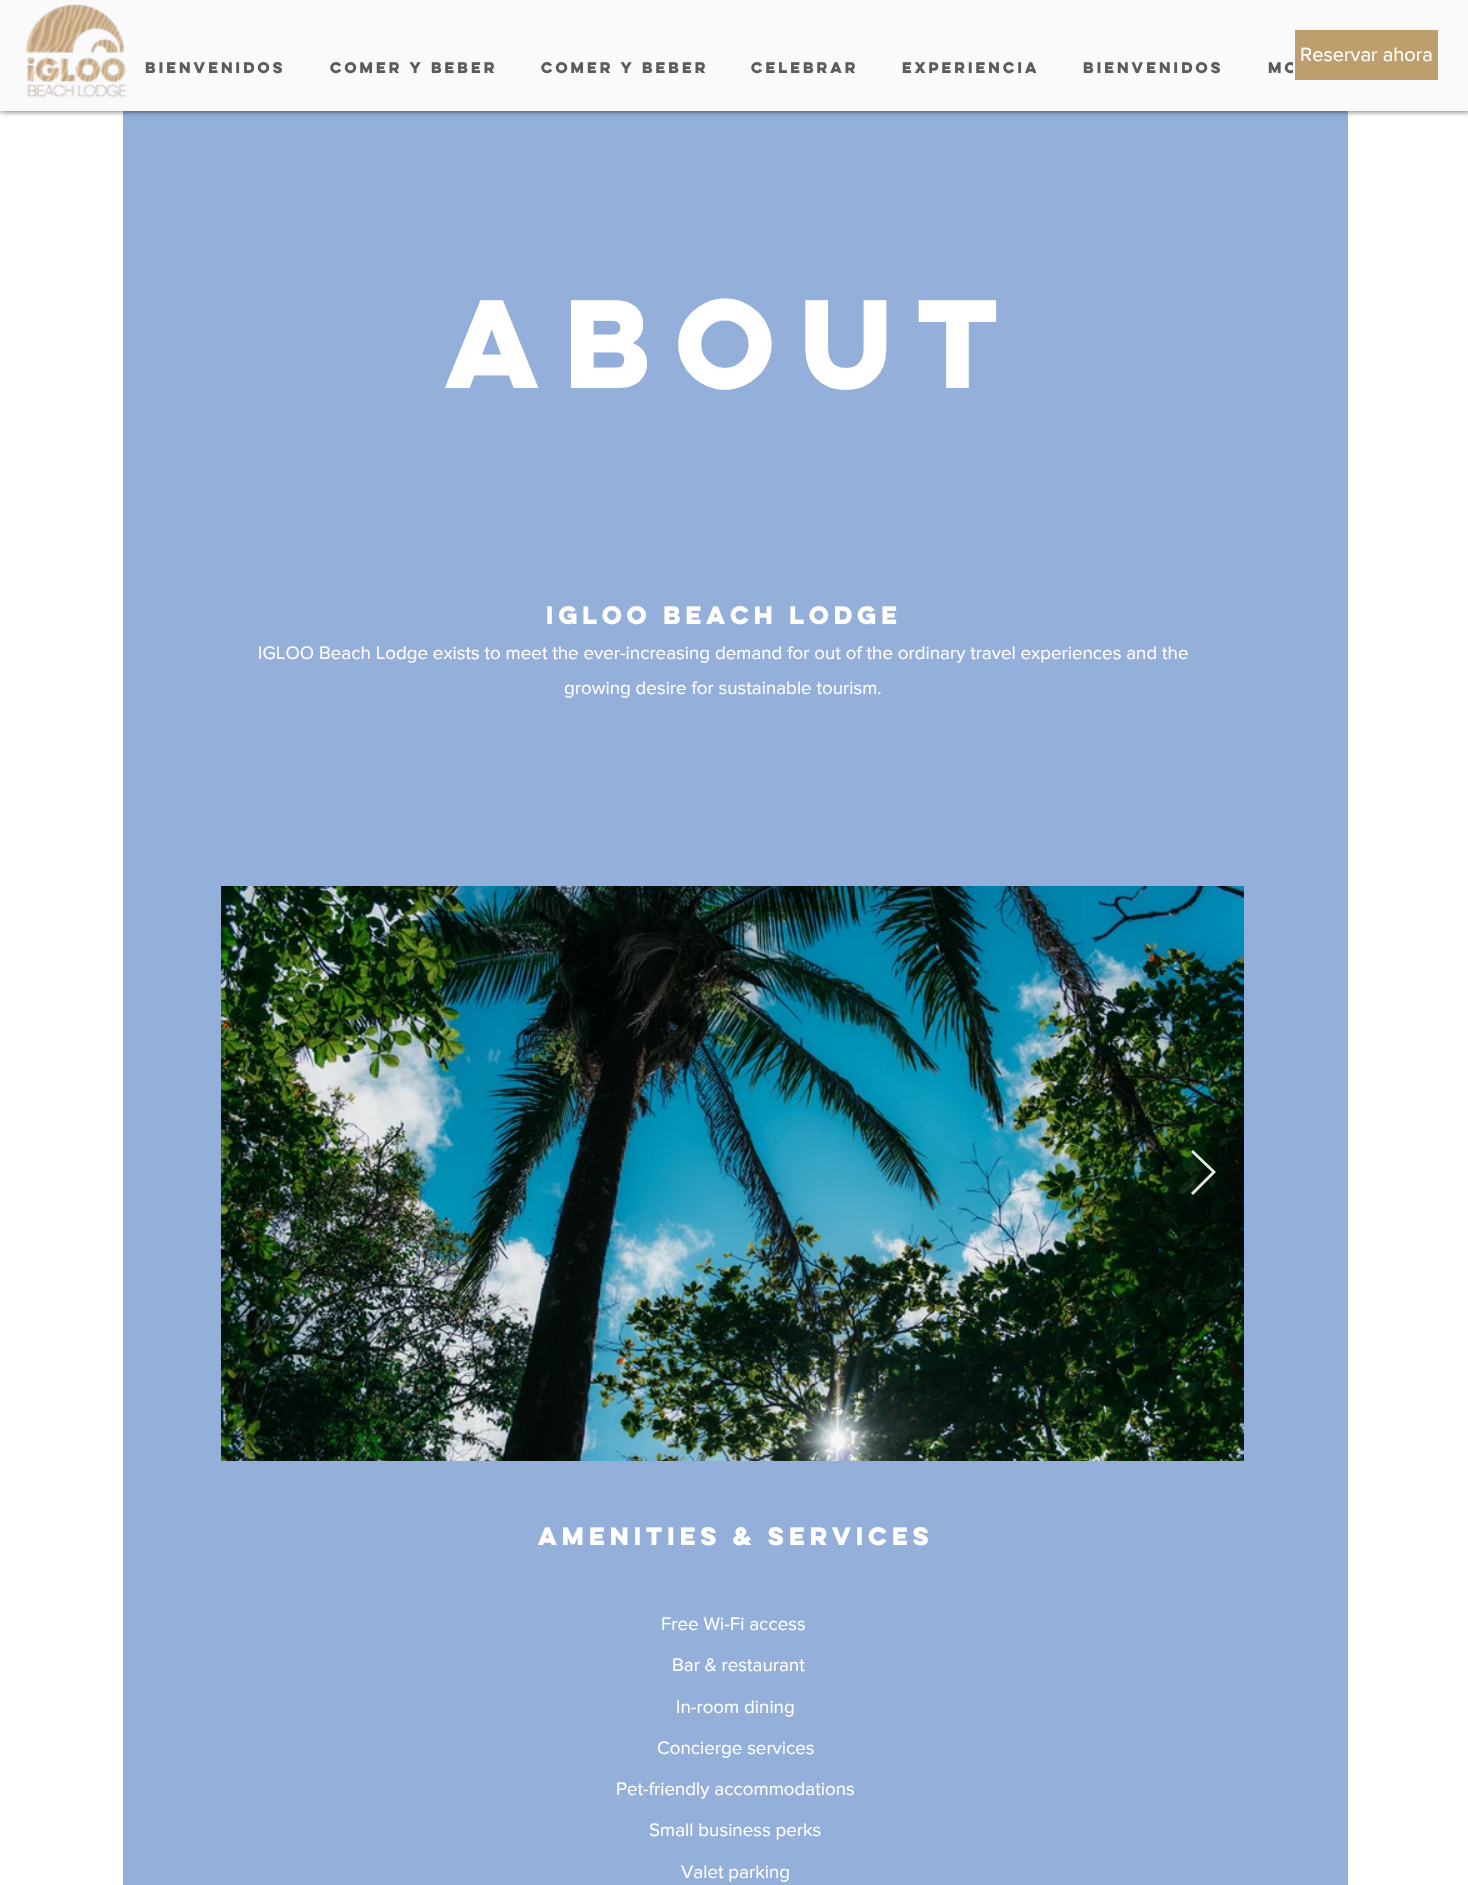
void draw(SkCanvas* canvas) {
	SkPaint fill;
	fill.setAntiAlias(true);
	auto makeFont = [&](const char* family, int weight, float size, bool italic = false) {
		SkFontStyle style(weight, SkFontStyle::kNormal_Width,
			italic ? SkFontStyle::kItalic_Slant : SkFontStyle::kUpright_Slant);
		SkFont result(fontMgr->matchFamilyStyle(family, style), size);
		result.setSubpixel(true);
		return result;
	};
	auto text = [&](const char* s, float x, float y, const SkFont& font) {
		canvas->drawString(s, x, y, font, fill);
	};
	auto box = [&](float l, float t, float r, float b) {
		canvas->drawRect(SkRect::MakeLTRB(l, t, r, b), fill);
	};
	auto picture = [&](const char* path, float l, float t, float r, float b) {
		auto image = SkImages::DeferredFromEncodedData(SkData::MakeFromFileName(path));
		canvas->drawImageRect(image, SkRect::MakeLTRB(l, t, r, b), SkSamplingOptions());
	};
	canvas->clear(0xFFFFFFFF);
	fill.setColor(0xFF94B0DA);
	box(123, 111, 1348, 1885);
	fill.setColor(0xB3000000);
	fill.setMaskFilter(SkMaskFilter::MakeBlur(kNormal_SkBlurStyle, 3));
	canvas->drawRect(SkRect::MakeLTRB(0, 0, 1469, 111), fill);
	fill.setMaskFilter(nullptr);
	fill.setColor(0xFFFAFAFA);
	box(0, 0, 1293, 111);
	picture("image0.png", 25, 4, 127, 98);
	picture("image1.png", 221, 886, 1244, 1461);
	fill.setColor(0xE6FFFFFF);
	canvas->drawPath(SkPathBuilder().moveTo(1191, 1152).lineTo(1193, 1150).lineTo(1216, 1172).lineTo(1193, 1195).lineTo(1191, 1193).lineTo(1212, 1172).close().detach(), fill);
	auto font1 = makeFont("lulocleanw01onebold", 700, 13.75f);
	fill.setColor(0xFF5C5C5C);
	text("bienvenidos", 145, 73, font1);
	text("comer y beber", 330, 73, font1);
	text("comer y beber", 541, 73, font1);
	text("Celebrar", 751, 73, font1);
	text("Experiencia", 902, 73, font1);
	text("bienvenidos", 1083, 73, font1);
	text("Mo", 1268, 73, font1);
	fill.setColor(0xFFFAFAFA);
	box(1293, 0, 1468, 111);
	fill.setColor(0xFFBD9F6D);
	box(1295, 30, 1438, 80);
	auto font2 = makeFont("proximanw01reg", 400, 20);
	fill.setColor(0xFFFFFFFF);
	text("Reservar ahora", 1300, 61, font2);
	auto font3 = makeFont("lulocleanw01onebold", 700, 112.5f);
	text("ABOUT", 445, 388, font3);
	auto font4 = makeFont("lulocleanw01onebold", 700, 22.5f);
	text("Igloo beach lodge", 546, 624, font4);
	auto font5 = makeFont("proximanw01reg", 400, 18.75f);
	text("IGLOO Beach Lodge exists to meet the ever-increasing demand for out of the ordinary travel experiences and the", 258, 659, font5);
	text("growing desire for sustainable tourism.", 564, 694, font5);
	text("Amenities & Services", 538, 1545, font4);
	text("Free Wi-Fi access", 661, 1630, font5);
	text("Bar & restaurant", 672, 1671, font5);
	text("In-room dining", 676, 1713, font5);
	text("Concierge services", 657, 1754, font5);
	text("Pet-friendly accommodations", 616, 1795, font5);
	text("Small business perks", 649, 1836, font5);
	text("Valet parking", 681, 1878, font5);
}
